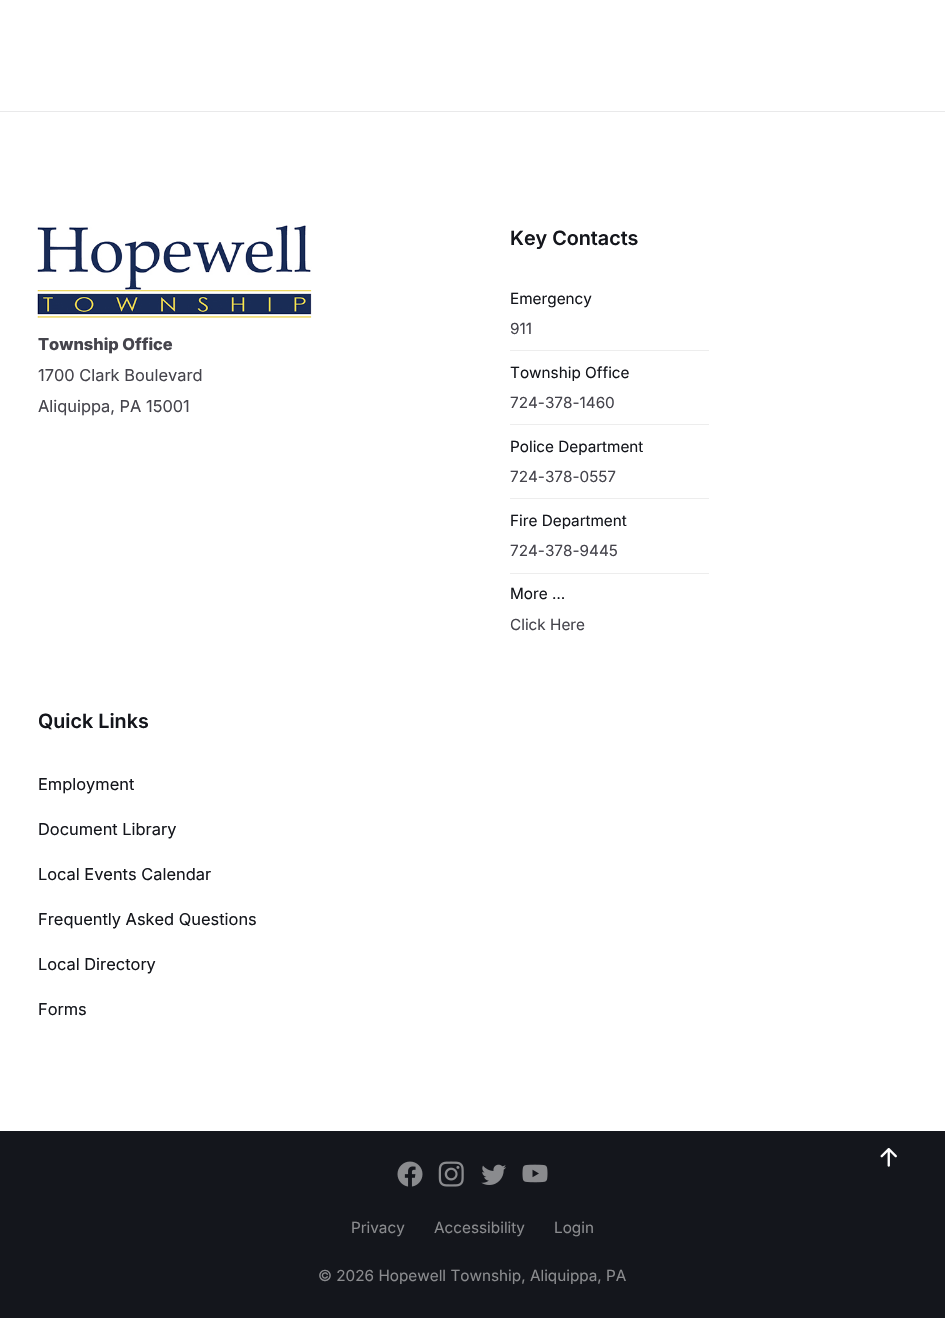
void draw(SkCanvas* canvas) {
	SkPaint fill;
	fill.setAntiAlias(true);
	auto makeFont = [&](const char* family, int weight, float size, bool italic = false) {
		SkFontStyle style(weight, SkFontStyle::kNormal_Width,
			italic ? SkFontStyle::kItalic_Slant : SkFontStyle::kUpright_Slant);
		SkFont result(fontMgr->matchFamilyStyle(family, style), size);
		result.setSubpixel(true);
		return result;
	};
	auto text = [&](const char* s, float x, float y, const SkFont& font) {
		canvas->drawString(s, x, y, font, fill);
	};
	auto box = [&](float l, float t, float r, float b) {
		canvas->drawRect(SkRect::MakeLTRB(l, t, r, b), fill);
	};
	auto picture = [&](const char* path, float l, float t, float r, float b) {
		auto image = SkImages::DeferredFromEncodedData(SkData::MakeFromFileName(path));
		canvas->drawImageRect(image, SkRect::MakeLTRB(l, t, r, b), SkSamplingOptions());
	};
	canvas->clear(0xFFFFFFFF);
	fill.setColor(0xFFE9E9EA);
	box(0, 111, 945, 112);
	picture("image0.png", 37, 225, 312, 318);
	fill.setColor(0xFFEDEDED);
	box(510, 350, 709, 351);
	box(510, 424, 709, 425);
	box(510, 498, 709, 499);
	box(510, 573, 709, 574);
	fill.setColor(0xFF14161C);
	box(0, 1131, 945, 1318);
	picture("image1.png", 880, 1148, 897, 1167);
	picture("image2.png", 397, 1161, 423, 1187);
	picture("image3.png", 438, 1161, 464, 1187);
	picture("image4.png", 481, 1164, 506, 1185);
	picture("image5.png", 522, 1164, 548, 1183);
	auto font1 = makeFont("Inter", 800, 16.4f);
	fill.setColor(0xFF45444C);
	text("Township Office", 38, 350, font1);
	auto font2 = makeFont("Inter", 400, 16.4f);
	text("1700 Clark Boulevard", 38, 381, font2);
	text("Aliquippa, PA 15001", 38, 412, font2);
	auto font3 = makeFont("Inter", 600, 19.75f);
	fill.setColor(0xFF14161C);
	text("Key Contacts", 510, 245, font3);
	auto font4 = makeFont("Inter", 400, 15.3f);
	text("Emergency", 510, 304, font4);
	fill.setColor(0xFF45444C);
	text("911", 510, 334, font4);
	fill.setColor(0xFF14161C);
	text("Township Office", 510, 378, font4);
	fill.setColor(0xFF45444C);
	text("724-378-1460", 510, 408, font4);
	fill.setColor(0xFF14161C);
	text("Police Department", 510, 452, font4);
	fill.setColor(0xFF45444C);
	text("724-378-0557", 510, 482, font4);
	fill.setColor(0xFF14161C);
	text("Fire Department", 510, 526, font4);
	fill.setColor(0xFF45444C);
	text("724-378-9445", 510, 556, font4);
	fill.setColor(0xFF14161C);
	text("More …", 510, 599, font4);
	fill.setColor(0xFF45444C);
	text("Click Here", 510, 630, font4);
	fill.setColor(0xFF14161C);
	text("Quick Links", 38, 728, font3);
	text("Employment", 38, 790, font2);
	text("Document Library", 38, 835, font2);
	text("Local Events Calendar", 38, 880, font2);
	text("Frequently Asked Questions", 38, 925, font2);
	text("Local Directory", 38, 970, font2);
	text("Forms", 38, 1015, font2);
	fill.setColor(0xFF8A8B8E);
	text("Privacy", 351, 1233, font4);
	text("Accessibility", 434, 1233, font4);
	text("Login", 554, 1233, font4);
	text("© 2026 Hopewell Township, Aliquippa, PA", 318, 1281, font4);
}
